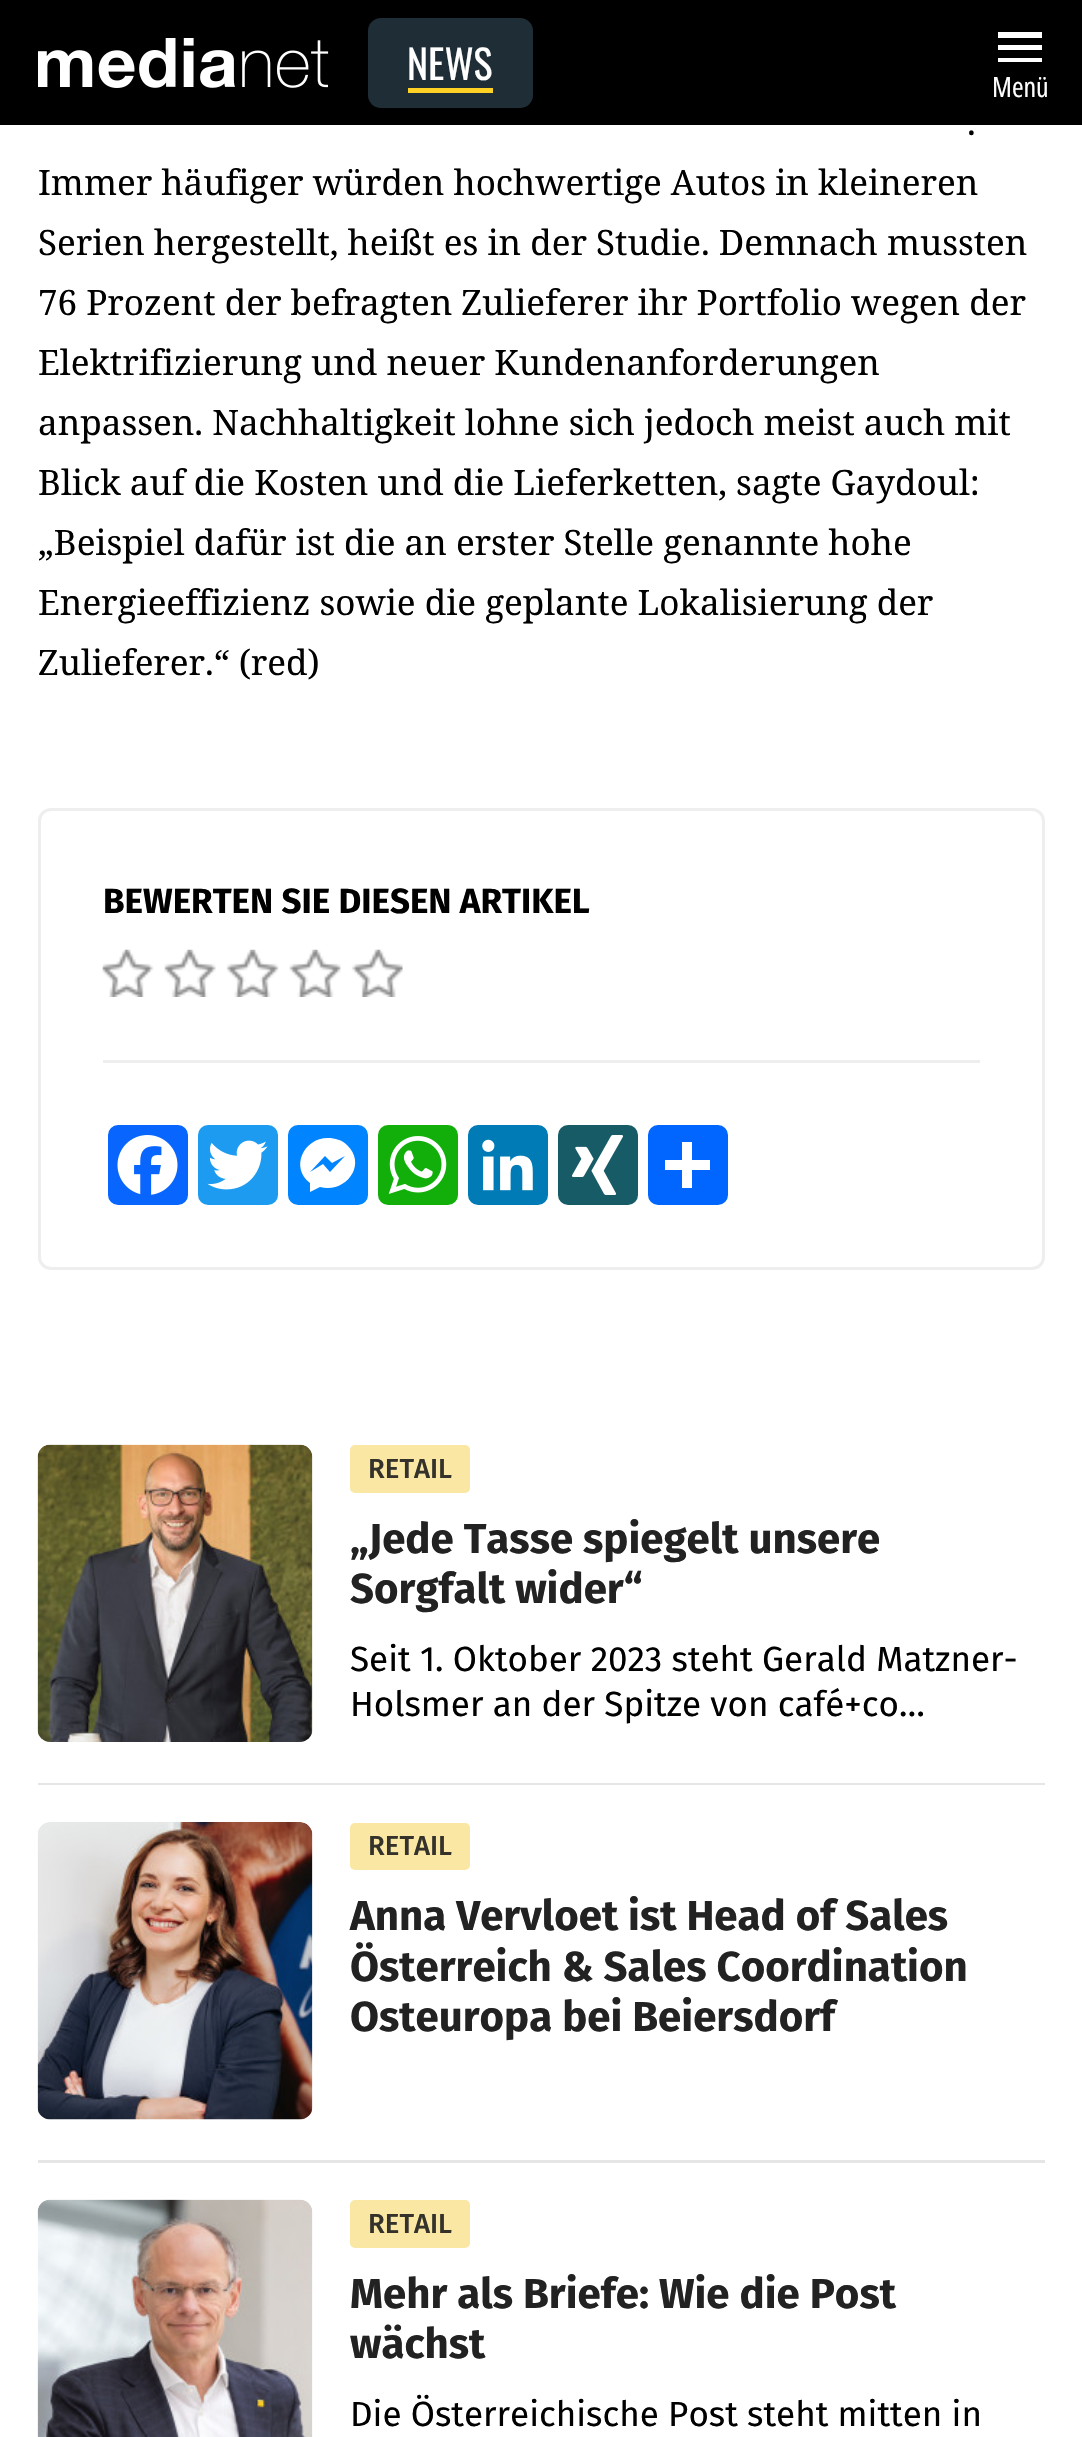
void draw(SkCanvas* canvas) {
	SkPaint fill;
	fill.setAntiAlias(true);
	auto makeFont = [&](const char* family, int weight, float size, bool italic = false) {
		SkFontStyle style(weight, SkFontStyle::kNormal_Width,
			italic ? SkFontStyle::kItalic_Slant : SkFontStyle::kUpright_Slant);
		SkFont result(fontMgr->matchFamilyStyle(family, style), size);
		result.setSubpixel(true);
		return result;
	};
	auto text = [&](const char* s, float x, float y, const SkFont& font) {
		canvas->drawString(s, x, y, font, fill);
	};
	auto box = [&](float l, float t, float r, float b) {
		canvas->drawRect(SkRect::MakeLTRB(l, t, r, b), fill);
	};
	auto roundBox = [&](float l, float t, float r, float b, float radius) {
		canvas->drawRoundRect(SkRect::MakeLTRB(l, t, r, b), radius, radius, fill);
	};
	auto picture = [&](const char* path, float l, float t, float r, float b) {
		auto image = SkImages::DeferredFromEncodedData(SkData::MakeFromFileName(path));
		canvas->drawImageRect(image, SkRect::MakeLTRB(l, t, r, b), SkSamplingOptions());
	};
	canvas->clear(0xFFFFFFFF);
	fill.setColor(0xFF000000);
	box(0, 0, 1082, 125);
	picture("image0.png", 38, 38, 329, 88);
	fill.setColor(0xFF1F2D37);
	roundBox(368, 18, 533, 108, 13);
	fill.setColor(0xFFFFD125);
	box(408, 88, 493, 93);
	fill.setColor(0xFFFFFFFF);
	canvas->drawPath(SkPathBuilder().moveTo(998, 62).lineTo(998, 58).lineTo(1042, 58).lineTo(1042, 62).close().moveTo(998, 50).lineTo(998, 45).lineTo(1042, 45).lineTo(1042, 50).close().moveTo(998, 38).lineTo(998, 32).lineTo(1042, 32).lineTo(1042, 38).close().detach(), fill);
	fill.setStyle(SkPaint::kStroke_Style);
	fill.setStrokeWidth(3);
	fill.setColor(0xFFEEEEEE);
	canvas->drawRoundRect(SkRect::MakeLTRB(39.5f, 809.5f, 1043.5f, 1268.5f), 11.5f, 11.5f, fill);
	fill.setStyle(SkPaint::kFill_Style);
	box(103, 1060, 980, 1063);
	picture("image1.png", 102, 949, 403, 997);
	fill.setColor(0xFF0866FF);
	roundBox(108, 1125, 188, 1205, 10);
	picture("image2.png", 117, 1135, 178, 1195);
	fill.setColor(0xFF1D9BF0);
	roundBox(198, 1125, 278, 1205, 10);
	picture("image3.png", 207, 1140, 268, 1190);
	fill.setColor(0xFF0084FF);
	roundBox(288, 1125, 368, 1205, 10);
	fill.setColor(0xFFFFFFFF);
	canvas->drawPath(SkPathBuilder().moveTo(328, 1138).cubicTo(303, 1138, 290, 1168, 310, 1183).lineTo(310, 1192).lineTo(320, 1187).cubicTo(345, 1194, 368, 1165, 347, 1145).cubicTo(342, 1140, 335, 1138, 328, 1138).moveTo(330, 1172).lineTo(323, 1164).lineTo(310, 1172).lineTo(325, 1156).lineTo(332, 1163).lineTo(345, 1156).close().detach(), fill);
	fill.setColor(0xFF12AF0A);
	roundBox(378, 1125, 458, 1205, 10);
	picture("image4.png", 388, 1136, 447, 1194);
	fill.setColor(0xFF007BB5);
	roundBox(468, 1125, 548, 1205, 10);
	picture("image5.png", 482, 1139, 533, 1191);
	fill.setColor(0xFF165B66);
	roundBox(558, 1125, 638, 1205, 10);
	picture("image6.png", 572, 1135, 623, 1195);
	fill.setColor(0xFF0166FF);
	roundBox(648, 1125, 728, 1205, 10);
	fill.setColor(0xFFFFFFFF);
	box(682, 1142, 692, 1188);
	box(665, 1160, 710, 1170);
	fill.setColor(0xFFE6E6E6);
	box(38, 1783, 1045, 1785);
	picture("image7.png", 37, 1444, 313, 1742);
	fill.setColor(0xFFF9E7A3);
	roundBox(350, 1445, 470, 1493, 5);
	fill.setColor(0xFFE6E6E6);
	box(38, 2160, 1045, 2163);
	picture("image8.png", 37, 1822, 313, 2120);
	fill.setColor(0xFFF9E7A3);
	roundBox(350, 1823, 470, 1870, 5);
	picture("image9.png", 37, 2199, 313, 2437);
	roundBox(350, 2200, 470, 2248, 5);
	auto font1 = makeFont("Oswald", 400, 40);
	fill.setColor(0xFFFFFFFF);
	text("NEWS", 407, 80, font1);
	auto font2 = makeFont("Open Sans", 400, 28);
	text("Menü", 992, 97, font2);
	auto font3 = makeFont("Noto Serif", 400, 35);
	fill.setColor(0xFF000000);
	text(".", 967, 135, font3);
	text("Immer häufiger würden hochwertige Autos in kleineren", 38, 195, font3);
	text("Serien hergestellt, heißt es in der Studie. Demnach mussten", 38, 255, font3);
	text("76 Prozent der befragten Zulieferer ihr Portfolio wegen der", 38, 315, font3);
	text("Elektrifizierung und neuer Kundenanforderungen", 38, 375, font3);
	text("anpassen. Nachhaltigkeit lohne sich jedoch meist auch mit", 38, 435, font3);
	text("Blick auf die Kosten und die Lieferketten, sagte Gaydoul:", 38, 495, font3);
	text("„Beispiel dafür ist die an erster Stelle genannte hohe", 38, 555, font3);
	text("Energieeffizienz sowie die geplante Lokalisierung der", 38, 615, font3);
	text("Zulieferer.“ (red)", 38, 675, font3);
	auto font4 = makeFont("Fira Sans", 700, 35);
	text("BEWERTEN SIE DIESEN ARTIKEL", 103, 913, font4);
	auto font5 = makeFont("Fira Sans", 500, 27.5f);
	fill.setColor(0xFF34322B);
	text("RETAIL", 368, 1478, font5);
	auto font6 = makeFont("Fira Sans", 700, 42);
	fill.setColor(0xFF222222);
	text("„Jede Tasse spiegelt unsere", 350, 1553, font6);
	text("Sorgfalt wider“", 350, 1603, font6);
	auto font7 = makeFont("Fira Sans", 400, 35);
	fill.setColor(0xFF000000);
	text("Seit 1. Oktober 2023 steht Gerald Matzner-", 350, 1671, font7);
	text("Holsmer an der Spitze von café+co…", 350, 1716, font7);
	fill.setColor(0xFF34322B);
	text("RETAIL", 368, 1855, font5);
	fill.setColor(0xFF222222);
	text("Anna Vervloet ist Head of Sales", 350, 1930, font6);
	text("Österreich & Sales Coordination", 350, 1981, font6);
	text("Osteuropa bei Beiersdorf", 350, 2031, font6);
	fill.setColor(0xFF34322B);
	text("RETAIL", 368, 2233, font5);
	fill.setColor(0xFF222222);
	text("Mehr als Briefe: Wie die Post", 350, 2308, font6);
	text("wächst", 350, 2358, font6);
	fill.setColor(0xFF000000);
	text("Die Österreichische Post steht mitten in", 350, 2426, font7);
}
